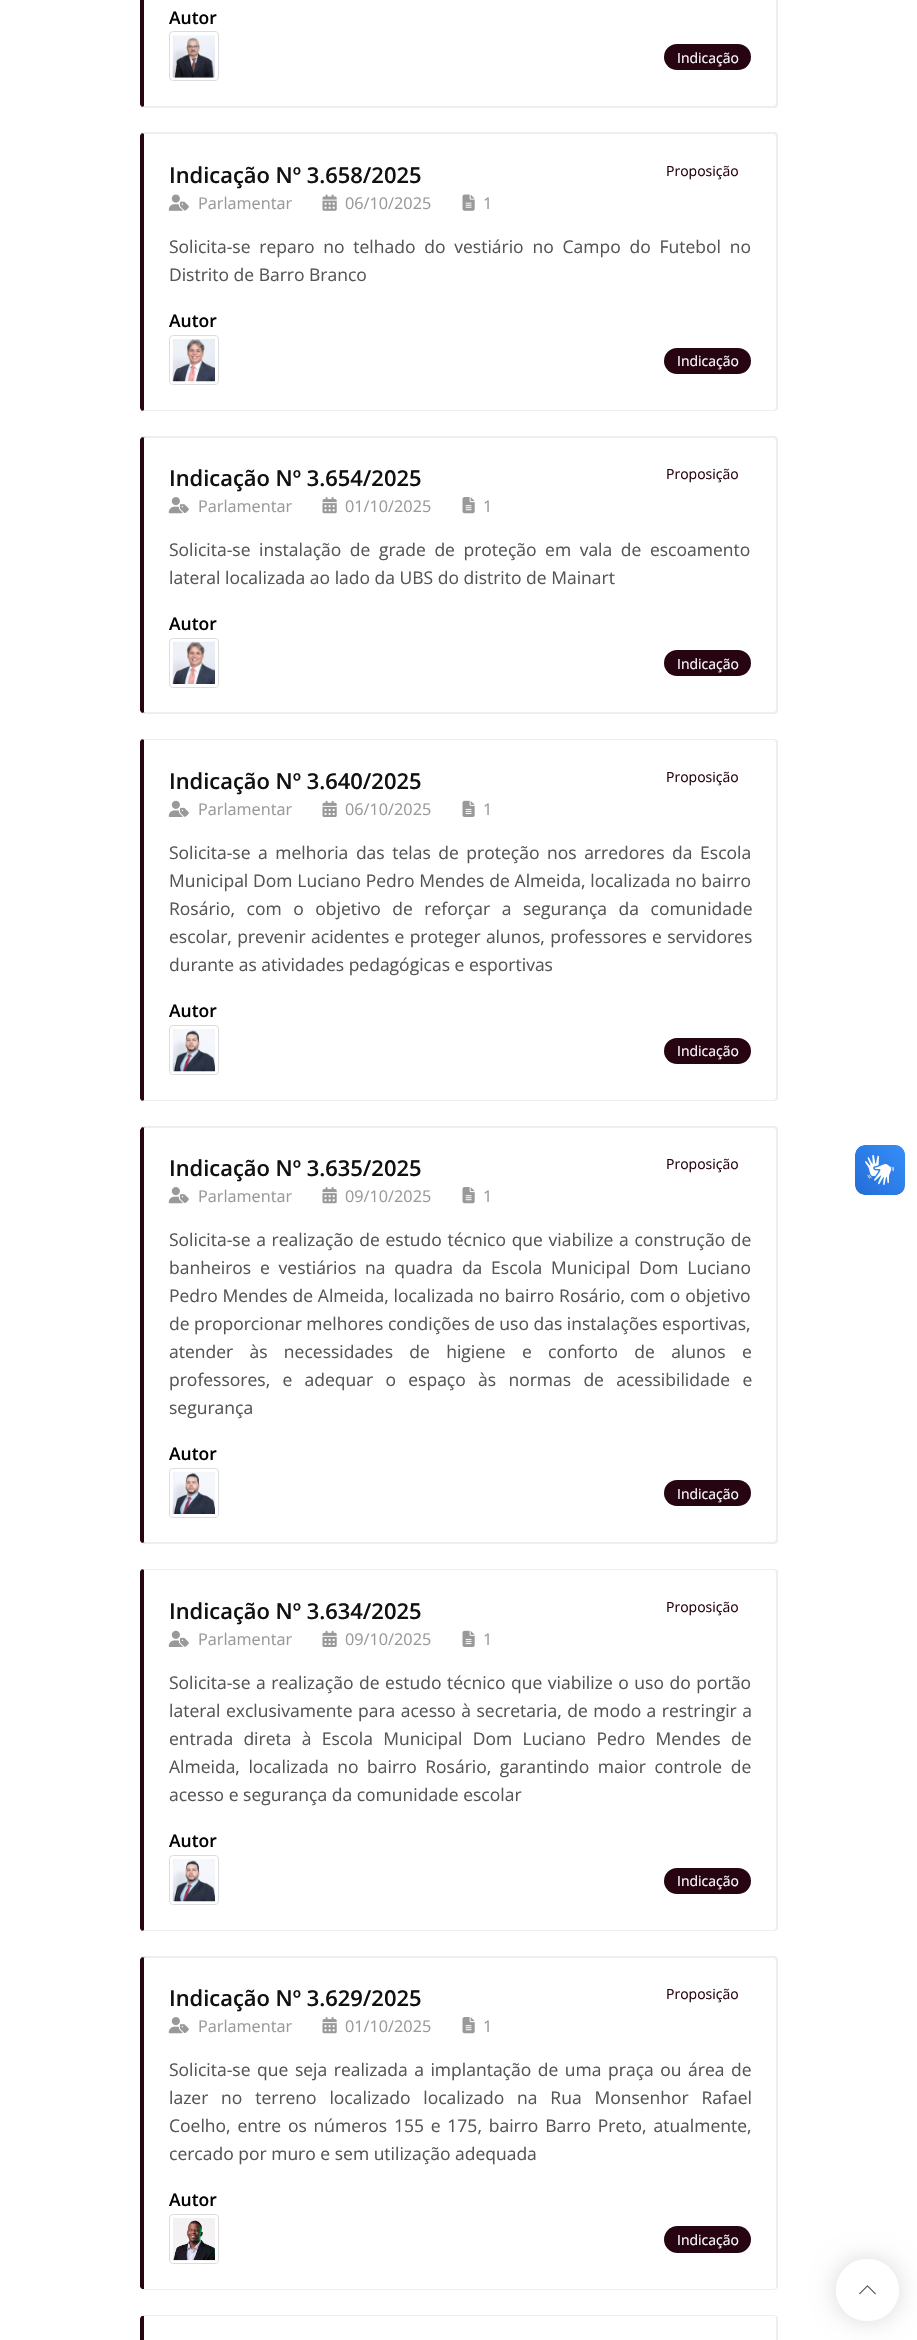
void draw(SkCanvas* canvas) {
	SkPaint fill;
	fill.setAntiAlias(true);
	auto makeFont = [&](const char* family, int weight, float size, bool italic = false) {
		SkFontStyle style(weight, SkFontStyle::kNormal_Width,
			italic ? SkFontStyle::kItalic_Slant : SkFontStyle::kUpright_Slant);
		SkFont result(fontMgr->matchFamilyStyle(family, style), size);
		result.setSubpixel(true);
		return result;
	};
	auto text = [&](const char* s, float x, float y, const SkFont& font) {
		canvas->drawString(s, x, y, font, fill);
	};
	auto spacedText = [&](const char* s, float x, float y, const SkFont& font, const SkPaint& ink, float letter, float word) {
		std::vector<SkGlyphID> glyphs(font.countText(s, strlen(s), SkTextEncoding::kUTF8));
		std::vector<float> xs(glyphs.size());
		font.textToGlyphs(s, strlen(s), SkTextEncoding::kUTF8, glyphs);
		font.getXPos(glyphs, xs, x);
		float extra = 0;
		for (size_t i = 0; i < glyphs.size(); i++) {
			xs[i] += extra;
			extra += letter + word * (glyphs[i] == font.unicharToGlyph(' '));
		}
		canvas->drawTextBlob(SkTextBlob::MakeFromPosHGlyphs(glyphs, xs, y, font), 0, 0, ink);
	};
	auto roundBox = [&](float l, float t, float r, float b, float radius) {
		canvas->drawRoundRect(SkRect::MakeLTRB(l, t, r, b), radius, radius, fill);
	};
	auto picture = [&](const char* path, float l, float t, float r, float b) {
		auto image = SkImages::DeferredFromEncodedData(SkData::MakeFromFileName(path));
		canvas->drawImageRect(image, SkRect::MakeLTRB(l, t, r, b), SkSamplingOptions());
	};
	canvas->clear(0xFFFFFFFF);
	fill.setColor(0xFFEEEEEE);
	canvas->drawPath(SkPathBuilder().moveTo(778, 106).lineTo(777, 107).lineTo(775, 105).lineTo(776, 104).lineTo(776, -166).lineTo(776, -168).lineTo(776, -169).lineTo(778, -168).close().detach(), fill);
	canvas->drawPath(SkPathBuilder().moveTo(142, 108).lineTo(142, 107).lineTo(144, 106).lineTo(774, 106).lineTo(775, 105).lineTo(777, 107).lineTo(776, 108).close().detach(), fill);
	fill.setColor(0xFF270411);
	canvas->drawPath(SkPathBuilder().moveTo(140, -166).lineTo(140, 104).cubicTo(140, 105, 141, 106, 142, 107).lineTo(144, 106).lineTo(144, -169).lineTo(142, -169).cubicTo(141, -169, 140, -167, 140, -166).close().detach(), fill);
	fill.setStyle(SkPaint::kStroke_Style);
	fill.setStrokeWidth(1);
	fill.setColor(0xFFDDDDDD);
	canvas->drawRoundRect(SkRect::MakeLTRB(169.5f, 31.5f, 218.5f, 80.5f), 3.5f, 3.5f, fill);
	picture("image0.png", 172, 35, 215, 78);
	fill.setStyle(SkPaint::kFill_Style);
	fill.setColor(0xFF270411);
	roundBox(664, 44, 751, 70, 13);
	fill.setColor(0xFFEEEEEE);
	canvas->drawPath(SkPathBuilder().moveTo(142, 133).lineTo(142, 132).lineTo(776, 132).lineTo(777, 133).lineTo(775, 135).lineTo(774, 134).lineTo(144, 134).close().detach(), fill);
	canvas->drawPath(SkPathBuilder().moveTo(778, 410).lineTo(777, 410).lineTo(775, 409).lineTo(776, 408).lineTo(776, 136).lineTo(775, 135).lineTo(777, 133).lineTo(778, 134).close().detach(), fill);
	canvas->drawPath(SkPathBuilder().moveTo(777, 410).lineTo(774, 411).lineTo(144, 411).lineTo(142, 411).lineTo(144, 410).lineTo(774, 410).lineTo(775, 409).close().detach(), fill);
	fill.setColor(0xFF270411);
	canvas->drawPath(SkPathBuilder().moveTo(144, 134).lineTo(142, 133).cubicTo(141, 134, 140, 135, 140, 136).lineTo(140, 408).lineTo(141, 410).lineTo(142, 411).lineTo(144, 410).close().detach(), fill);
	picture("image1.png", 168, 194, 189, 211);
	picture("image2.png", 322, 194, 337, 211);
	picture("image3.png", 462, 194, 475, 211);
	fill.setStyle(SkPaint::kStroke_Style);
	fill.setColor(0xFFDDDDDD);
	canvas->drawRoundRect(SkRect::MakeLTRB(169.5f, 335.5f, 218.5f, 384.5f), 3.5f, 3.5f, fill);
	picture("image4.png", 172, 339, 215, 382);
	fill.setStyle(SkPaint::kFill_Style);
	fill.setColor(0xFF270411);
	roundBox(664, 348, 751, 374, 13);
	fill.setColor(0xFFEEEEEE);
	canvas->drawPath(SkPathBuilder().moveTo(142, 437).lineTo(143, 436).lineTo(775, 436).lineTo(777, 437).lineTo(775, 439).lineTo(774, 438).lineTo(145, 438).close().detach(), fill);
	canvas->drawPath(SkPathBuilder().moveTo(778, 712).lineTo(777, 713).lineTo(775, 711).lineTo(776, 710).lineTo(776, 440).lineTo(775, 439).lineTo(777, 437).lineTo(778, 438).close().detach(), fill);
	canvas->drawPath(SkPathBuilder().moveTo(143, 714).lineTo(142, 713).lineTo(145, 712).lineTo(774, 712).lineTo(775, 711).lineTo(777, 713).lineTo(775, 714).close().detach(), fill);
	fill.setColor(0xFF270411);
	canvas->drawPath(SkPathBuilder().moveTo(144, 438).lineTo(145, 438).lineTo(142, 437).cubicTo(141, 438, 140, 439, 140, 440).lineTo(140, 710).cubicTo(140, 711, 141, 712, 142, 713).lineTo(145, 712).lineTo(144, 712).close().detach(), fill);
	picture("image5.png", 168, 497, 189, 514);
	picture("image6.png", 322, 497, 337, 514);
	picture("image7.png", 462, 497, 475, 514);
	fill.setStyle(SkPaint::kStroke_Style);
	fill.setColor(0xFFDDDDDD);
	canvas->drawRoundRect(SkRect::MakeLTRB(169.5f, 638.5f, 218.5f, 687.5f), 3.5f, 3.5f, fill);
	picture("image8.png", 172, 641, 215, 684);
	fill.setStyle(SkPaint::kFill_Style);
	fill.setColor(0xFF270411);
	roundBox(664, 650, 751, 676, 13);
	fill.setColor(0xFFEEEEEE);
	canvas->drawPath(SkPathBuilder().moveTo(144, 739).lineTo(142, 739).lineTo(144, 740).lineTo(774, 740).lineTo(775, 741).lineTo(777, 740).lineTo(774, 739).close().detach(), fill);
	canvas->drawPath(SkPathBuilder().moveTo(778, 1100).lineTo(777, 1100).lineTo(775, 1099).lineTo(776, 1098).lineTo(776, 742).lineTo(775, 741).lineTo(777, 740).lineTo(778, 740).close().detach(), fill);
	canvas->drawPath(SkPathBuilder().moveTo(777, 1100).lineTo(774, 1101).lineTo(144, 1101).lineTo(142, 1101).lineTo(144, 1100).lineTo(774, 1100).lineTo(775, 1099).close().detach(), fill);
	fill.setColor(0xFF270411);
	canvas->drawPath(SkPathBuilder().moveTo(140, 742).lineTo(140, 1098).cubicTo(140, 1099, 141, 1100, 142, 1101).lineTo(144, 1100).lineTo(144, 740).lineTo(142, 739).cubicTo(141, 740, 140, 741, 140, 742).close().detach(), fill);
	picture("image9.png", 168, 800, 189, 817);
	picture("image10.png", 322, 800, 337, 817);
	picture("image11.png", 462, 800, 475, 817);
	fill.setStyle(SkPaint::kStroke_Style);
	fill.setColor(0xFFDDDDDD);
	canvas->drawRoundRect(SkRect::MakeLTRB(169.5f, 1025.5f, 218.5f, 1074.5f), 3.5f, 3.5f, fill);
	picture("image12.png", 172, 1029, 215, 1072);
	fill.setStyle(SkPaint::kFill_Style);
	fill.setColor(0xFF270411);
	roundBox(664, 1038, 751, 1064, 13);
	fill.setColor(0xFFEEEEEE);
	canvas->drawPath(SkPathBuilder().moveTo(142, 1127).lineTo(143, 1126).lineTo(775, 1126).lineTo(777, 1127).lineTo(775, 1129).lineTo(774, 1128).lineTo(145, 1128).close().detach(), fill);
	canvas->drawPath(SkPathBuilder().moveTo(778, 1542).lineTo(777, 1543).lineTo(775, 1541).lineTo(776, 1540).lineTo(776, 1130).lineTo(775, 1129).lineTo(777, 1127).lineTo(778, 1128).close().detach(), fill);
	canvas->drawPath(SkPathBuilder().moveTo(143, 1544).lineTo(142, 1543).lineTo(145, 1542).lineTo(774, 1542).lineTo(775, 1541).lineTo(777, 1543).lineTo(775, 1544).close().detach(), fill);
	fill.setColor(0xFF270411);
	canvas->drawPath(SkPathBuilder().moveTo(144, 1128).lineTo(145, 1128).lineTo(142, 1127).lineTo(140, 1130).lineTo(140, 1540).cubicTo(140, 1541, 141, 1542, 142, 1543).lineTo(145, 1542).lineTo(144, 1542).close().detach(), fill);
	picture("image5.png", 168, 1187, 189, 1204);
	picture("image6.png", 322, 1187, 337, 1204);
	picture("image7.png", 462, 1187, 475, 1204);
	fill.setStyle(SkPaint::kStroke_Style);
	fill.setColor(0xFFDDDDDD);
	canvas->drawRoundRect(SkRect::MakeLTRB(169.5f, 1468.5f, 218.5f, 1517.5f), 3.5f, 3.5f, fill);
	picture("image13.png", 172, 1471, 215, 1514);
	fill.setStyle(SkPaint::kFill_Style);
	fill.setColor(0xFF270411);
	roundBox(664, 1480, 751, 1506, 13);
	fill.setColor(0xFFEEEEEE);
	canvas->drawPath(SkPathBuilder().moveTo(144, 1569).lineTo(142, 1569).lineTo(144, 1570).lineTo(774, 1570).lineTo(775, 1571).lineTo(777, 1570).lineTo(774, 1569).close().detach(), fill);
	canvas->drawPath(SkPathBuilder().moveTo(778, 1930).lineTo(777, 1930).lineTo(775, 1929).lineTo(776, 1928).lineTo(776, 1572).lineTo(775, 1571).lineTo(777, 1570).lineTo(778, 1570).close().detach(), fill);
	canvas->drawPath(SkPathBuilder().moveTo(777, 1930).lineTo(774, 1931).lineTo(144, 1931).lineTo(142, 1931).lineTo(144, 1930).lineTo(774, 1930).lineTo(775, 1929).close().detach(), fill);
	fill.setColor(0xFF270411);
	canvas->drawPath(SkPathBuilder().moveTo(140, 1572).lineTo(140, 1928).cubicTo(140, 1929, 141, 1930, 142, 1931).lineTo(144, 1930).lineTo(144, 1570).lineTo(142, 1569).cubicTo(141, 1570, 140, 1571, 140, 1572).close().detach(), fill);
	picture("image9.png", 168, 1630, 189, 1647);
	picture("image10.png", 322, 1630, 337, 1647);
	picture("image11.png", 462, 1630, 475, 1647);
	fill.setStyle(SkPaint::kStroke_Style);
	fill.setColor(0xFFDDDDDD);
	canvas->drawRoundRect(SkRect::MakeLTRB(169.5f, 1855.5f, 218.5f, 1904.5f), 3.5f, 3.5f, fill);
	picture("image14.png", 172, 1859, 215, 1902);
	fill.setStyle(SkPaint::kFill_Style);
	fill.setColor(0xFF270411);
	roundBox(664, 1868, 751, 1894, 13);
	fill.setColor(0xFFEEEEEE);
	canvas->drawPath(SkPathBuilder().moveTo(142, 1957).lineTo(143, 1956).lineTo(775, 1956).lineTo(777, 1957).lineTo(775, 1959).lineTo(774, 1958).lineTo(145, 1958).close().detach(), fill);
	canvas->drawPath(SkPathBuilder().moveTo(778, 2288).lineTo(776, 2289).lineTo(776, 2288).lineTo(776, 2286).lineTo(776, 1960).lineTo(775, 1959).lineTo(777, 1957).lineTo(778, 1958).close().detach(), fill);
	canvas->drawPath(SkPathBuilder().moveTo(144, 2290).lineTo(774, 2290).lineTo(776, 2289).lineTo(776, 2288).lineTo(774, 2289).lineTo(144, 2289).lineTo(142, 2289).close().detach(), fill);
	fill.setColor(0xFF270411);
	canvas->drawPath(SkPathBuilder().moveTo(144, 1958).lineTo(145, 1958).lineTo(142, 1957).cubicTo(141, 1958, 140, 1959, 140, 1960).lineTo(140, 2287).lineTo(142, 2289).lineTo(144, 2289).close().detach(), fill);
	picture("image5.png", 168, 2017, 189, 2034);
	picture("image6.png", 322, 2017, 337, 2034);
	picture("image7.png", 462, 2017, 475, 2034);
	fill.setStyle(SkPaint::kStroke_Style);
	fill.setColor(0xFFDDDDDD);
	canvas->drawRoundRect(SkRect::MakeLTRB(169.5f, 2214.5f, 218.5f, 2263.5f), 3.5f, 3.5f, fill);
	picture("image15.png", 173, 2218, 215, 2261);
	fill.setStyle(SkPaint::kFill_Style);
	fill.setColor(0xFF270411);
	roundBox(664, 2226, 751, 2253, 13.5f);
	fill.setColor(0xFFEEEEEE);
	canvas->drawPath(SkPathBuilder().moveTo(144, 2315).lineTo(142, 2316).lineTo(144, 2316).lineTo(774, 2316).lineTo(776, 2317).lineTo(776, 2316).lineTo(774, 2315).close().detach(), fill);
	canvas->drawPath(SkPathBuilder().moveTo(778, 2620).lineTo(777, 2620).lineTo(775, 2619).lineTo(776, 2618).lineTo(776, 2319).lineTo(776, 2317).lineTo(776, 2316).lineTo(778, 2317).close().detach(), fill);
	fill.setColor(0xFF270411);
	canvas->drawPath(SkPathBuilder().moveTo(140, 2319).lineTo(140, 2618).lineTo(141, 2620).lineTo(142, 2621).lineTo(144, 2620).lineTo(144, 2316).lineTo(142, 2316).cubicTo(141, 2316, 140, 2318, 140, 2319).close().detach(), fill);
	canvas->save();
	canvas->clipPath(SkPathBuilder(SkPathFillType::kEvenOdd).moveTo(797, 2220).lineTo(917, 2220).lineTo(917, 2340).lineTo(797, 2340).close().moveTo(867, 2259).lineTo(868, 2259).cubicTo(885, 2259, 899, 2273, 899, 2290).cubicTo(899, 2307, 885, 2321, 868, 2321).lineTo(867, 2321).cubicTo(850, 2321, 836, 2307, 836, 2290).cubicTo(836, 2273, 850, 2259, 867, 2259).close().detach(), true);
	fill.setColor(0x26000000);
	fill.setMaskFilter(SkMaskFilter::MakeBlur(kNormal_SkBlurStyle, 12.5f));
	canvas->drawRoundRect(SkRect::MakeLTRB(836, 2259, 899, 2321), 31, 31, fill);
	fill.setMaskFilter(nullptr);
	canvas->restore();
	fill.setColor(0xB3FFFFFF);
	roundBox(836, 2259, 899, 2321, 31);
	picture("image16.png", 859, 2285, 876, 2295);
	picture("image17.png", 855, 1145, 905, 1195);
	picture("image18.png", 855, 1145, 905, 1195);
	auto font1 = makeFont("Open Sans", 600, 17.5f);
	fill.setColor(0xFF000000);
	text("Autor", 169, 24, font1);
	auto font2 = makeFont("Open Sans", 400, 14);
	fill.setColor(0xFFFFFFFF);
	text("Indicação", 677, 63, font2);
	auto font3 = makeFont("Open Sans", 600, 21.9f);
	fill.setColor(0xFF111111);
	text("Indicação Nº 3.658/2025", 169, 183, font3);
	fill.setColor(0xFF270411);
	text("Proposição", 666, 176, font2);
	auto font4 = makeFont("Open Sans", 400, 16.25f);
	fill.setColor(0xFF999999);
	text("Parlamentar", 198, 209, font4);
	text("06/10/2025", 345, 209, font4);
	text("1", 483, 209, font4);
	auto font5 = makeFont("Open Sans", 400, 17.5f);
	fill.setColor(0xFF555555);
	spacedText("Solicita-se reparo no telhado do vestiário no Campo do Futebol no", 169, 253, font5, fill, 0, 4.25f);
	text("Distrito de Barro Branco", 169, 281, font5);
	fill.setColor(0xFF000000);
	text("Autor", 169, 327, font1);
	fill.setColor(0xFFFFFFFF);
	text("Indicação", 677, 366, font2);
	fill.setColor(0xFF111111);
	text("Indicação Nº 3.654/2025", 169, 486, font3);
	fill.setColor(0xFF270411);
	text("Proposição", 666, 479, font2);
	fill.setColor(0xFF999999);
	text("Parlamentar", 198, 512, font4);
	text("01/10/2025", 345, 512, font4);
	text("1", 483, 512, font4);
	fill.setColor(0xFF555555);
	spacedText("Solicita-se instalação de grade de proteção em vala de escoamento", 169, 556, font5, fill, 0, 4);
	text("lateral localizada ao lado da UBS do distrito de Mainart", 169, 584, font5);
	fill.setColor(0xFF000000);
	text("Autor", 169, 630, font1);
	fill.setColor(0xFFFFFFFF);
	text("Indicação", 677, 669, font2);
	fill.setColor(0xFF111111);
	text("Indicação Nº 3.640/2025", 169, 789, font3);
	fill.setColor(0xFF270411);
	text("Proposição", 666, 782, font2);
	fill.setColor(0xFF999999);
	text("Parlamentar", 198, 815, font4);
	text("06/10/2025", 345, 815, font4);
	text("1", 483, 815, font4);
	fill.setColor(0xFF555555);
	spacedText("Solicita-se a melhoria das telas de proteção nos arredores da Escola", 169, 859, font5, fill, 0, 3);
	spacedText("Municipal Dom Luciano Pedro Mendes de Almeida, localizada no bairro", 169, 887, font5, fill, 0, 0.25f);
	spacedText("Rosário, com o objetivo de reforçar a segurança da comunidade", 169, 915, font5, fill, 0, 7);
	spacedText("escolar, prevenir acidentes e proteger alunos, professores e servidores", 169, 943, font5, fill, 0, 0.75f);
	text("durante as atividades pedagógicas e esportivas", 169, 971, font5);
	fill.setColor(0xFF000000);
	text("Autor", 169, 1017, font1);
	fill.setColor(0xFFFFFFFF);
	text("Indicação", 677, 1056, font2);
	fill.setColor(0xFF111111);
	text("Indicação Nº 3.635/2025", 169, 1176, font3);
	fill.setColor(0xFF270411);
	text("Proposição", 666, 1169, font2);
	fill.setColor(0xFF999999);
	text("Parlamentar", 198, 1202, font4);
	text("09/10/2025", 345, 1202, font4);
	text("1", 483, 1202, font4);
	fill.setColor(0xFF555555);
	spacedText("Solicita-se a realização de estudo técnico que viabilize a construção de", 169, 1246, font5, fill, 0, 1.1f);
	spacedText("banheiros e vestiários na quadra da Escola Municipal Dom Luciano", 169, 1274, font5, fill, 0, 4.25f);
	spacedText("Pedro Mendes de Almeida, localizada no bairro Rosário, com o objetivo", 169, 1302, font5, fill, 0, 0.25f);
	text("de proporcionar melhores condições de uso das instalações esportivas,", 169, 1330, font5);
	spacedText("atender às necessidades de higiene e conforto de alunos e", 169, 1358, font5, fill, 0, 11.75f);
	spacedText("professores, e adequar o espaço às normas de acessibilidade e", 169, 1386, font5, fill, 0, 7.75f);
	text("segurança", 169, 1414, font5);
	fill.setColor(0xFF000000);
	text("Autor", 169, 1460, font1);
	fill.setColor(0xFFFFFFFF);
	text("Indicação", 677, 1499, font2);
	fill.setColor(0xFF111111);
	text("Indicação Nº 3.634/2025", 169, 1619, font3);
	fill.setColor(0xFF270411);
	text("Proposição", 666, 1612, font2);
	fill.setColor(0xFF999999);
	text("Parlamentar", 198, 1645, font4);
	text("09/10/2025", 345, 1645, font4);
	text("1", 483, 1645, font4);
	fill.setColor(0xFF555555);
	spacedText("Solicita-se a realização de estudo técnico que viabilize o uso do portão", 169, 1689, font5, fill, 0, 1);
	spacedText("lateral exclusivamente para acesso à secretaria, de modo a restringir a", 169, 1717, font5, fill, 0, 0.9f);
	spacedText("entrada direta à Escola Municipal Dom Luciano Pedro Mendes de", 169, 1745, font5, fill, 0, 5.75f);
	spacedText("Almeida, localizada no bairro Rosário, garantindo maior controle de", 169, 1773, font5, fill, 0, 4);
	text("acesso e segurança da comunidade escolar", 169, 1801, font5);
	fill.setColor(0xFF000000);
	text("Autor", 169, 1847, font1);
	fill.setColor(0xFFFFFFFF);
	text("Indicação", 677, 1886, font2);
	fill.setColor(0xFF111111);
	text("Indicação Nº 3.629/2025", 169, 2006, font3);
	fill.setColor(0xFF270411);
	text("Proposição", 666, 1999, font2);
	fill.setColor(0xFF999999);
	text("Parlamentar", 198, 2032, font4);
	text("01/10/2025", 345, 2032, font4);
	text("1", 483, 2032, font4);
	fill.setColor(0xFF555555);
	spacedText("Solicita-se que seja realizada a implantação de uma praça ou área de", 169, 2076, font5, fill, 0, 2);
	spacedText("lazer no terreno localizado localizado na Rua Monsenhor Rafael", 169, 2104, font5, fill, 0, 8.25f);
	spacedText("Coelho, entre os números 155 e 175, bairro Barro Preto, atualmente,", 169, 2132, font5, fill, 0, 2.25f);
	text("cercado por muro e sem utilização adequada", 169, 2160, font5);
	fill.setColor(0xFF000000);
	text("Autor", 169, 2206, font1);
	fill.setColor(0xFFFFFFFF);
	text("Indicação", 677, 2245, font2);
}
